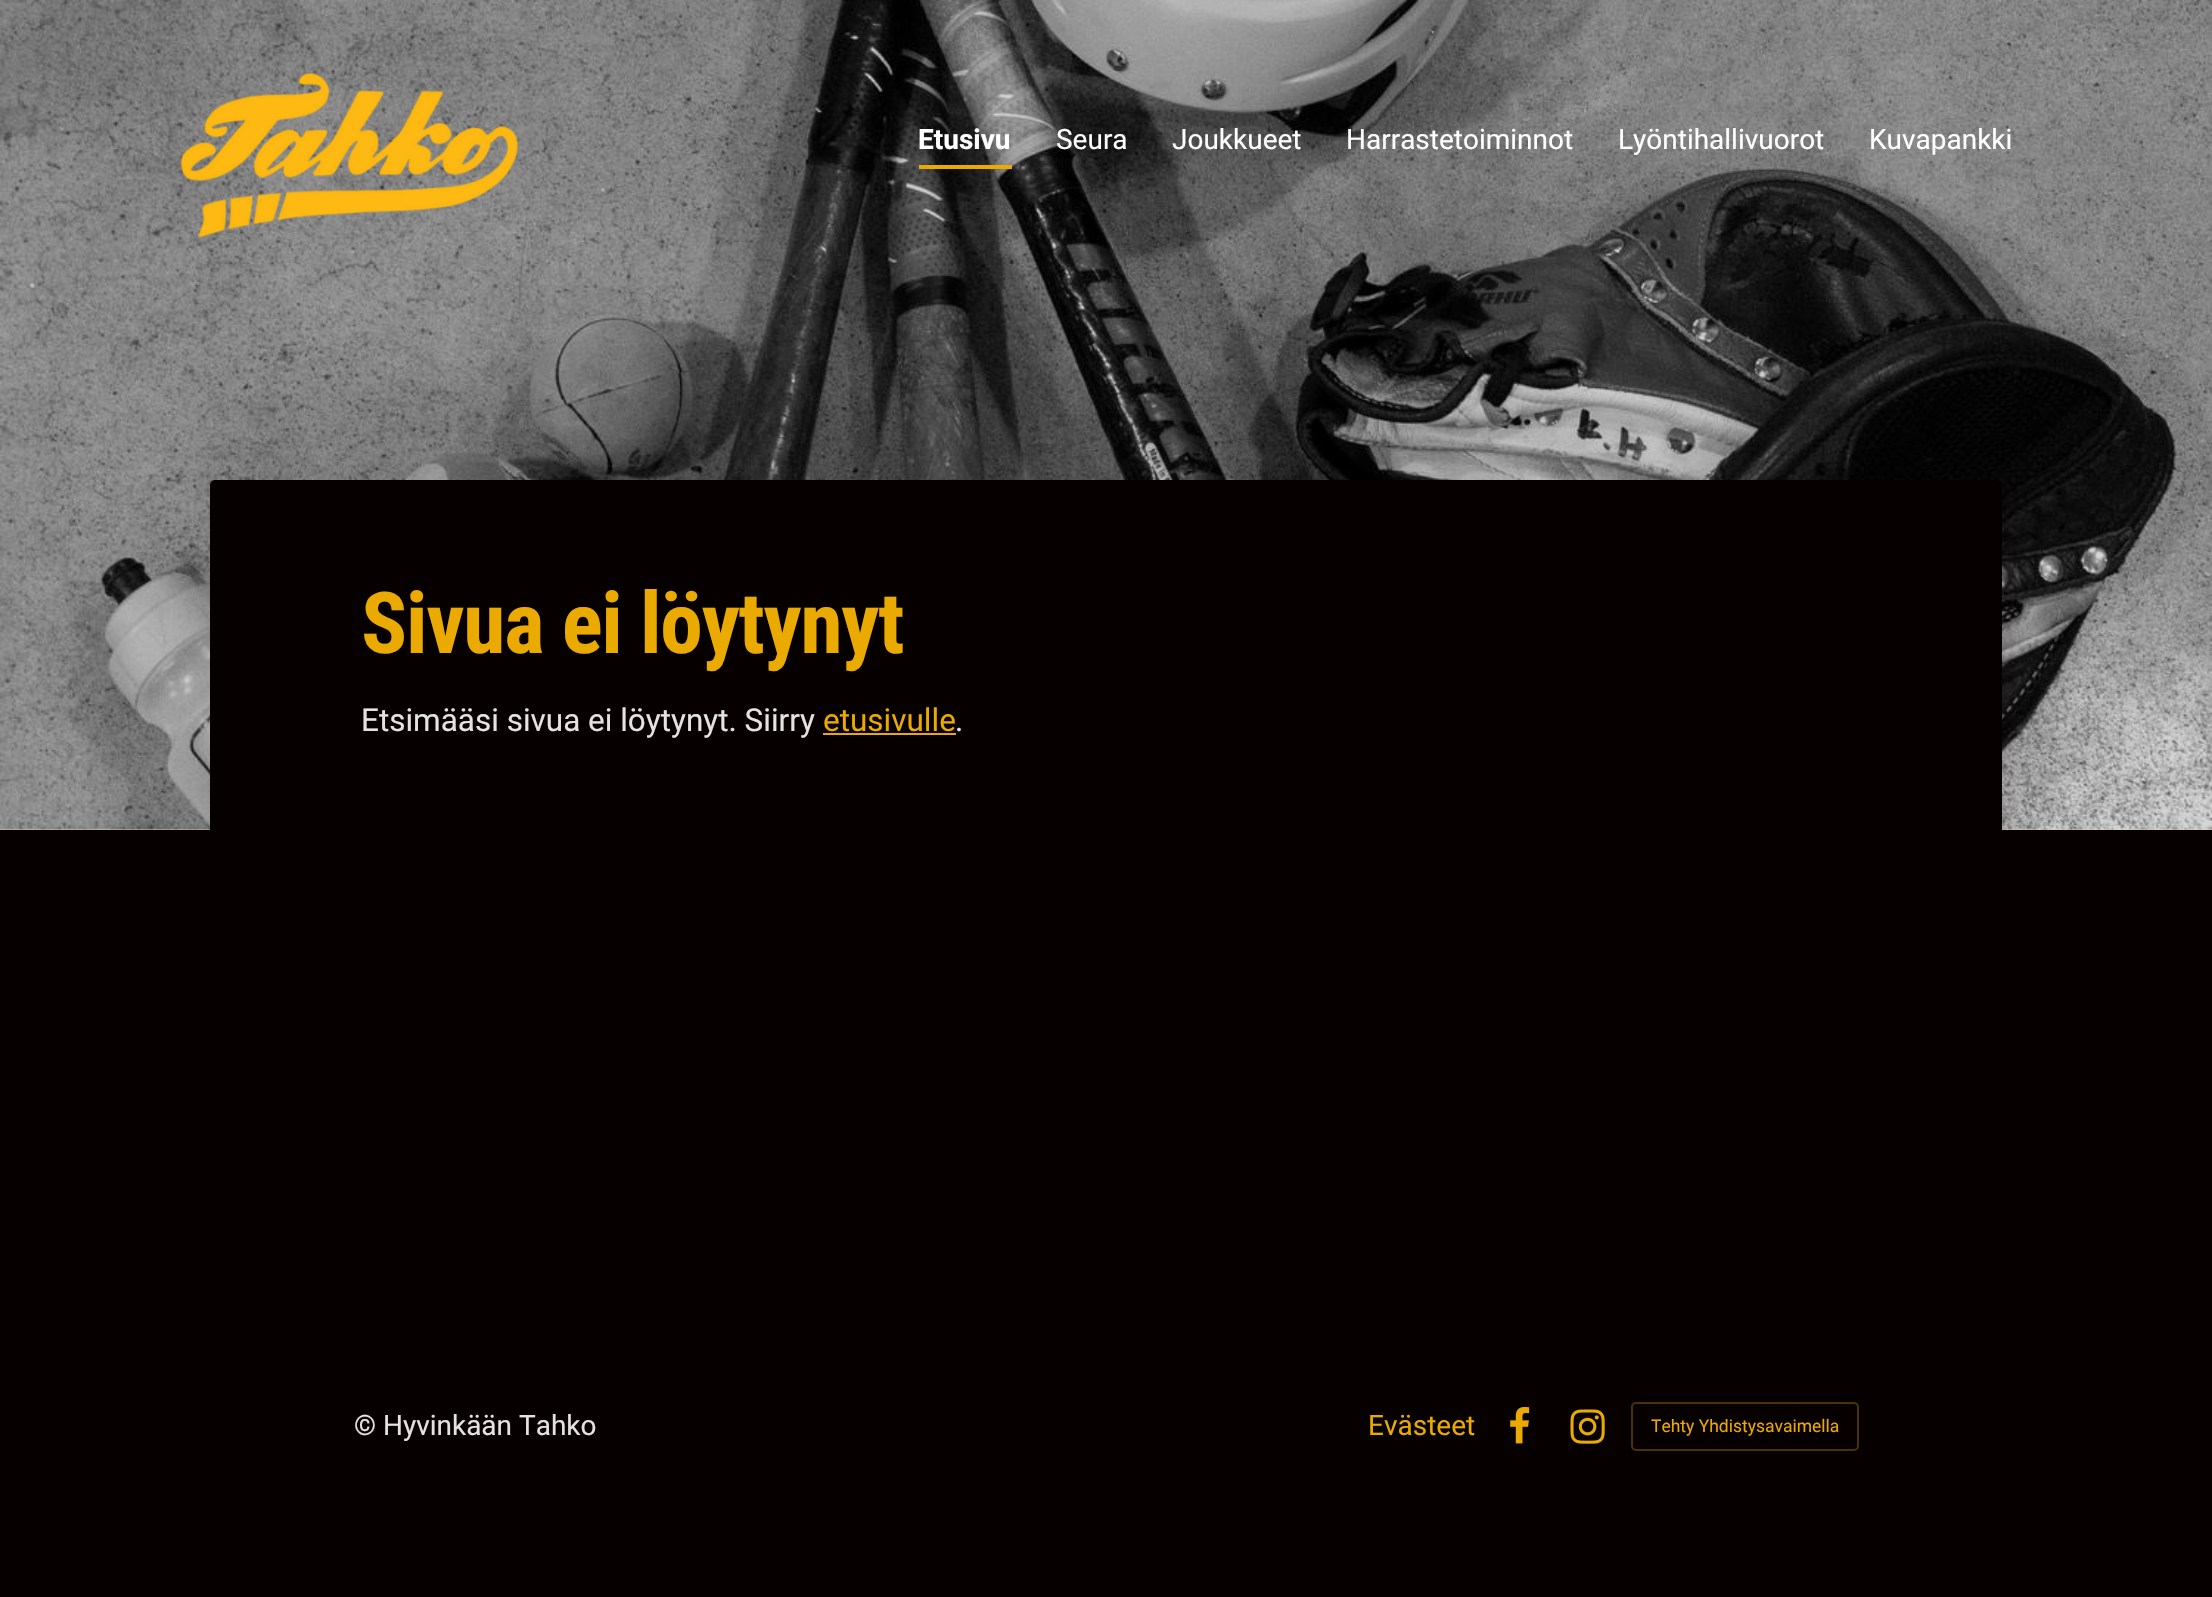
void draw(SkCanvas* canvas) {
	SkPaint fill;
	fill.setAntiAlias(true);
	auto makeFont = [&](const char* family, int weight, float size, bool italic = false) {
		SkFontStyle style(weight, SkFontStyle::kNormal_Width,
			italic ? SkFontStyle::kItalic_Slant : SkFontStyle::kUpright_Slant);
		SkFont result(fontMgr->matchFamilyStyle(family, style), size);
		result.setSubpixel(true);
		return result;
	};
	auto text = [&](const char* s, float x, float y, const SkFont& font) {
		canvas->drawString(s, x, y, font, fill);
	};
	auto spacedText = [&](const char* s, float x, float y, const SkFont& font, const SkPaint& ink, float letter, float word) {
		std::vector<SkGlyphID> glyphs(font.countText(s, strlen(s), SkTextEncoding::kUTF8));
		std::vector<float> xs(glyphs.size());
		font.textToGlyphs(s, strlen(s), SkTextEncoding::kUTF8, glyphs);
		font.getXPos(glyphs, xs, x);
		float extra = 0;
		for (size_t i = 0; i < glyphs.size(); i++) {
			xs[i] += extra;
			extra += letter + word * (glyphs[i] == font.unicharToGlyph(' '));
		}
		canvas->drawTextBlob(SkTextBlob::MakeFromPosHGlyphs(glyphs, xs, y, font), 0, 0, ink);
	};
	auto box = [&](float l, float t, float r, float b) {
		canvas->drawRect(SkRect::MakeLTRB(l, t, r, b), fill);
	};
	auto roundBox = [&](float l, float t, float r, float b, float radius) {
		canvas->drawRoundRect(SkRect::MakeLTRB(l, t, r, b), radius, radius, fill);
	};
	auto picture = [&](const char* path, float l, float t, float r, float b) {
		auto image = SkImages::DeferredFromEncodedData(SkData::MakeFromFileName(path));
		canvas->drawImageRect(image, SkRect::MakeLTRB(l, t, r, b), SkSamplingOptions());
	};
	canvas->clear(0xFF060000);
	fill.setColor(0xFFD9CDB1);
	box(0, 829, 2212, 830);
	picture("image0.png", 0, 0, 2212, 830);
	picture("image1.png", 180, 72, 519, 238);
	fill.setColor(0xFFEAAA00);
	box(919, 165, 1012, 169);
	fill.setColor(0x1A000000);
	fill.setMaskFilter(SkMaskFilter::MakeBlur(kNormal_SkBlurStyle, 44));
	canvas->drawRoundRect(SkRect::MakeLTRB(210, 392, 2002, 1092), 5, 5, fill);
	fill.setMaskFilter(nullptr);
	fill.setColor(0xFF060000);
	roundBox(210, 480, 2002, 1180, 5);
	fill.setColor(0xFFEAAA00);
	box(823, 733, 956, 735);
	picture("image2.png", 1510, 1407, 1530, 1444);
	picture("image3.png", 1570, 1409, 1605, 1444);
	fill.setStyle(SkPaint::kStroke_Style);
	fill.setStrokeWidth(2);
	fill.setColor(0xFF4A3300);
	canvas->drawRoundRect(SkRect::MakeLTRB(1632, 1403, 1858, 1450), 4, 4, fill);
	auto font1 = makeFont("Roboto", 700, 28);
	fill.setStyle(SkPaint::kFill_Style);
	fill.setColor(0xFFFFFFFF);
	text("Etusivu", 918, 149, font1);
	auto font2 = makeFont("Roboto", 400, 28);
	text("Seura", 1056, 149, font2);
	text("Joukkueet", 1172, 149, font2);
	text("Harrastetoiminnot", 1346, 149, font2);
	text("Lyöntihallivuorot", 1618, 149, font2);
	text("Kuvapankki", 1869, 149, font2);
	auto font3 = makeFont("Roboto Condensed", 700, 85.5f);
	fill.setColor(0xFFEAAA00);
	spacedText("Sivua ei löytynyt", 361, 653, font3, fill, -1.25f, 0);
	auto font4 = makeFont("Roboto", 400, 31.5f);
	fill.setColor(0xFFE6E2E2);
	text("Etsimääsi sivua ei löytynyt. Siirry", 361, 731, font4);
	fill.setColor(0xFFEAAA00);
	text("etusivulle", 823, 731, font4);
	fill.setColor(0xFFE6E2E2);
	text(".", 955, 731, font4);
	text("© Hyvinkään Tahko", 354, 1435, font2);
	fill.setColor(0xFFEAAA00);
	text("Evästeet", 1368, 1435, font2);
	auto font5 = makeFont("Roboto", 400, 17.5f);
	text("Tehty Yhdistysavaimella", 1651, 1432, font5);
}
